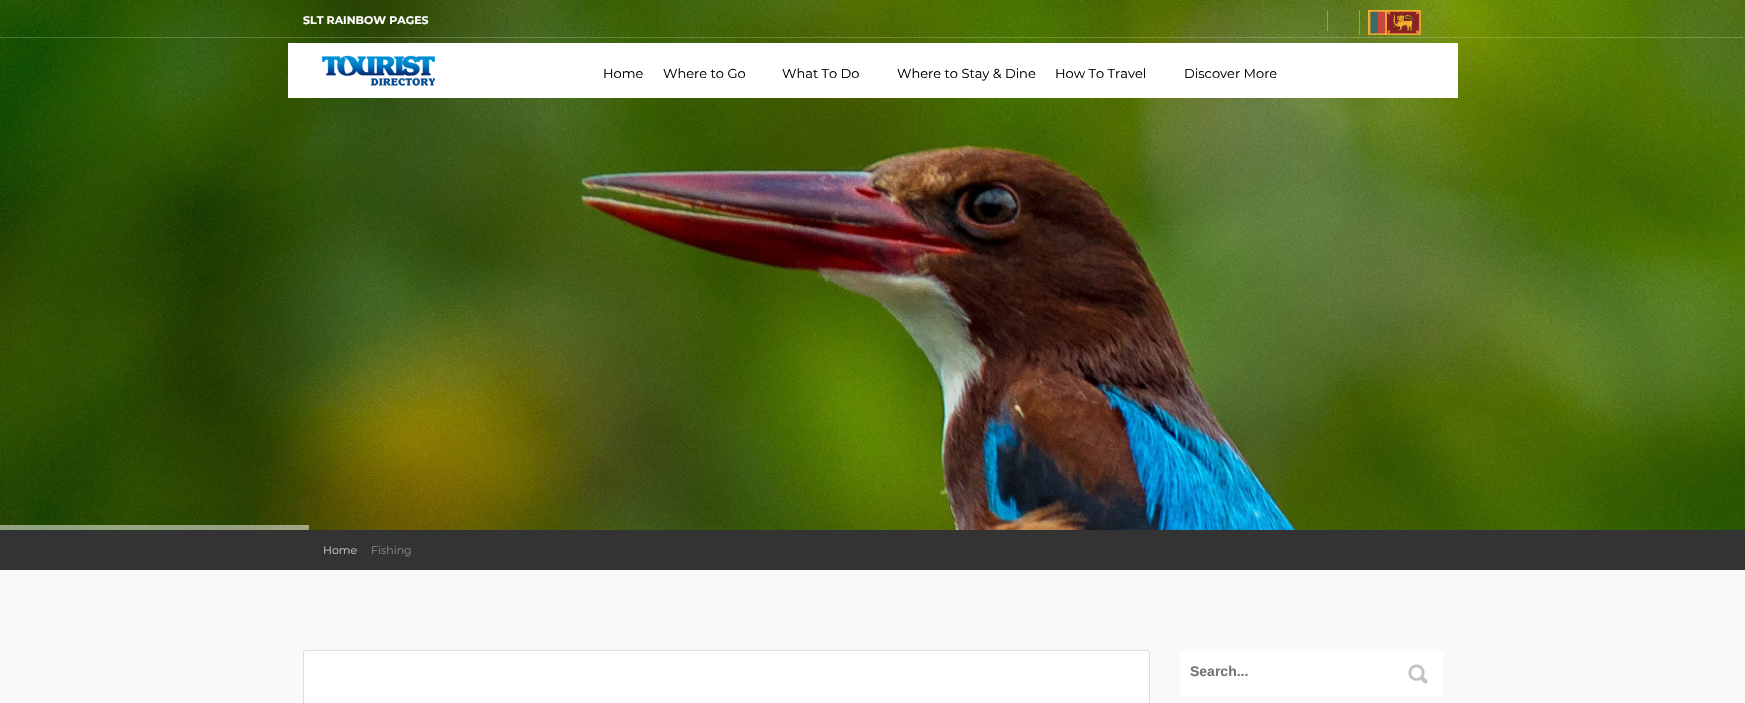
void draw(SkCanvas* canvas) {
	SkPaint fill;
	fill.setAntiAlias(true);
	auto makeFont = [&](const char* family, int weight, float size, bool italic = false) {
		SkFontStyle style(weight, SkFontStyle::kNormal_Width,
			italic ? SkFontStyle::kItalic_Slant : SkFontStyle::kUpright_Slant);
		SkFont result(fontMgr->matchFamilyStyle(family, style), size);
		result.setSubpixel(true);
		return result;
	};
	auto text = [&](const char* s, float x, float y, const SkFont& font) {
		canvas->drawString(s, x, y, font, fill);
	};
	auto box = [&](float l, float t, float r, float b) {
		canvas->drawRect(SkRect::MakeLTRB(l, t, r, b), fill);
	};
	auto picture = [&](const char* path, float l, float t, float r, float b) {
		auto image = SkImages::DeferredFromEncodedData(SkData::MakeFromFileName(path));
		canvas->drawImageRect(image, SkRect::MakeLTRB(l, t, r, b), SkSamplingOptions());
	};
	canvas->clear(0xFFF9F9F9);
	picture("image0.png", 0, 0, 1745, 530);
	fill.setColor(0x80FFFFFF);
	box(0, 525, 309, 530);
	fill.setColor(0x33FFFFFF);
	box(0, 37, 1745, 38);
	fill.setColor(0x4DFFFFFF);
	box(1327, 11, 1328, 31);
	box(1359, 10, 1360, 35);
	picture("image1.png", 1368, 10, 1421, 35);
	fill.setColor(0xFFFFFFFF);
	box(288, 43, 1458, 98);
	picture("image2.png", 321, 55, 435, 86);
	fill.setColor(0xFF333333);
	box(0, 530, 1745, 570);
	fill.setColor(0xFFFFFFFF);
	canvas->drawRoundRect(SkRect::MakeLTRB(303.5f, 650.5f, 1149.5f, 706.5f), 2.5f, 2.5f, fill);
	fill.setStyle(SkPaint::kStroke_Style);
	fill.setStrokeWidth(1);
	fill.setColor(0xFFDDDDDD);
	canvas->drawRoundRect(SkRect::MakeLTRB(303.5f, 650.5f, 1149.5f, 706.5f), 2.5f, 2.5f, fill);
	fill.setStyle(SkPaint::kFill_Style);
	fill.setColor(0xFFFFFFFF);
	box(1180, 651, 1443, 696);
	picture("image3.png", 1408, 664, 1428, 684);
	auto font1 = makeFont("Montserrat", 700, 11);
	text("SLT RAINBOW PAGES", 303, 24, font1);
	auto font2 = makeFont("Montserrat", 400, 13);
	fill.setColor(0xFF000000);
	text("Home", 603, 78, font2);
	text("Where to Go", 663, 78, font2);
	text("What To Do", 782, 78, font2);
	text("Where to Stay & Dine", 897, 78, font2);
	text("How To Travel", 1055, 78, font2);
	text("Discover More", 1184, 78, font2);
	auto font3 = makeFont("Montserrat", 400, 11);
	fill.setColor(0xFFC2C2C2);
	text("Home", 323, 554, font3);
	fill.setColor(0xFF888888);
	text("Fishing", 371, 554, font3);
	auto font4 = makeFont("Liberation Sans", 700, 14);
	fill.setColor(0xFF757575);
	text("Search...", 1190, 676, font4);
}
